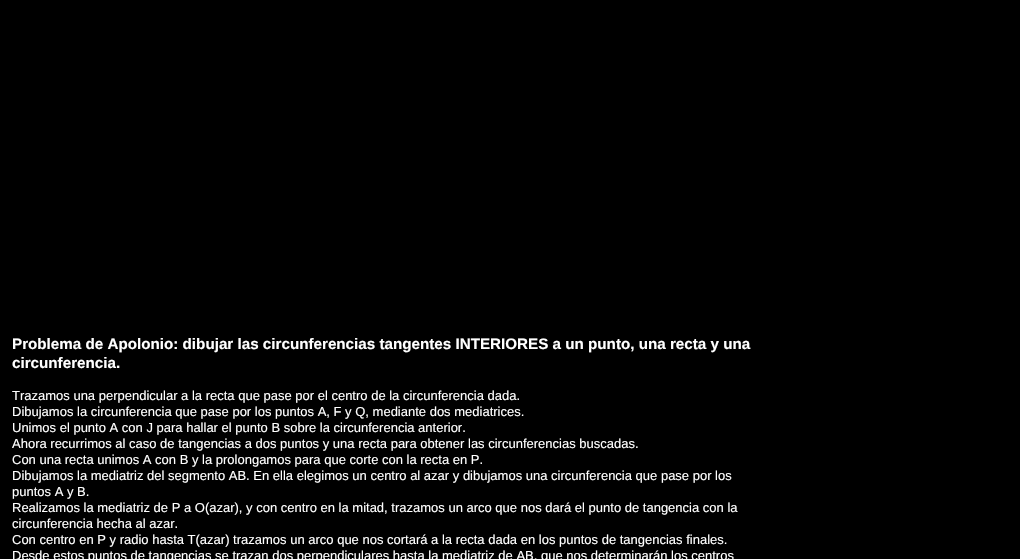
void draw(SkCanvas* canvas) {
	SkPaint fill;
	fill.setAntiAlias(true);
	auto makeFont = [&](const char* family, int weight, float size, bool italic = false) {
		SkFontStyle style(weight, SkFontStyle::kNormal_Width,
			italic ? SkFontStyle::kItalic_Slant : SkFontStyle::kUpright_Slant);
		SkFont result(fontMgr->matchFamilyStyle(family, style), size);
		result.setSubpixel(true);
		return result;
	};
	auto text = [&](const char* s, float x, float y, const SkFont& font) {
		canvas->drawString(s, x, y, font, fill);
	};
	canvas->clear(0xFF000000);
	auto font1 = makeFont("Liberation Sans", 700, 15.2f);
	fill.setColor(0xFFFFFFFF);
	text("Problema de Apolonio: dibujar las circunferencias tangentes INTERIORES a un punto, una recta y una", 12, 349, font1);
	text("circunferencia.", 12, 368, font1);
	auto font2 = makeFont("Liberation Sans", 400, 13);
	text("Trazamos una perpendicular a la recta que pase por el centro de la circunferencia dada.", 12, 400, font2);
	text("Dibujamos la circunferencia que pase por los puntos A, F y Q, mediante dos mediatrices.", 12, 416, font2);
	text("Unimos el punto A con J para hallar el punto B sobre la circunferencia anterior.", 12, 432, font2);
	text("Ahora recurrimos al caso de tangencias a dos puntos y una recta para obtener las circunferencias buscadas.", 12, 448, font2);
	text("Con una recta unimos A con B y la prolongamos para que corte con la recta en P.", 12, 464, font2);
	text("Dibujamos la mediatriz del segmento AB. En ella elegimos un centro al azar y dibujamos una circunferencia que pase por los", 12, 480, font2);
	text("puntos A y B.", 12, 496, font2);
	text("Realizamos la mediatriz de P a O(azar), y con centro en la mitad, trazamos un arco que nos dará el punto de tangencia con la", 12, 512, font2);
	text("circunferencia hecha al azar.", 12, 528, font2);
	text("Con centro en P y radio hasta T(azar) trazamos un arco que nos cortará a la recta dada en los puntos de tangencias finales.", 12, 544, font2);
	text("Desde estos puntos de tangencias se trazan dos perpendiculares hasta la mediatriz de AB, que nos determinarán los centros", 12, 560, font2);
}
